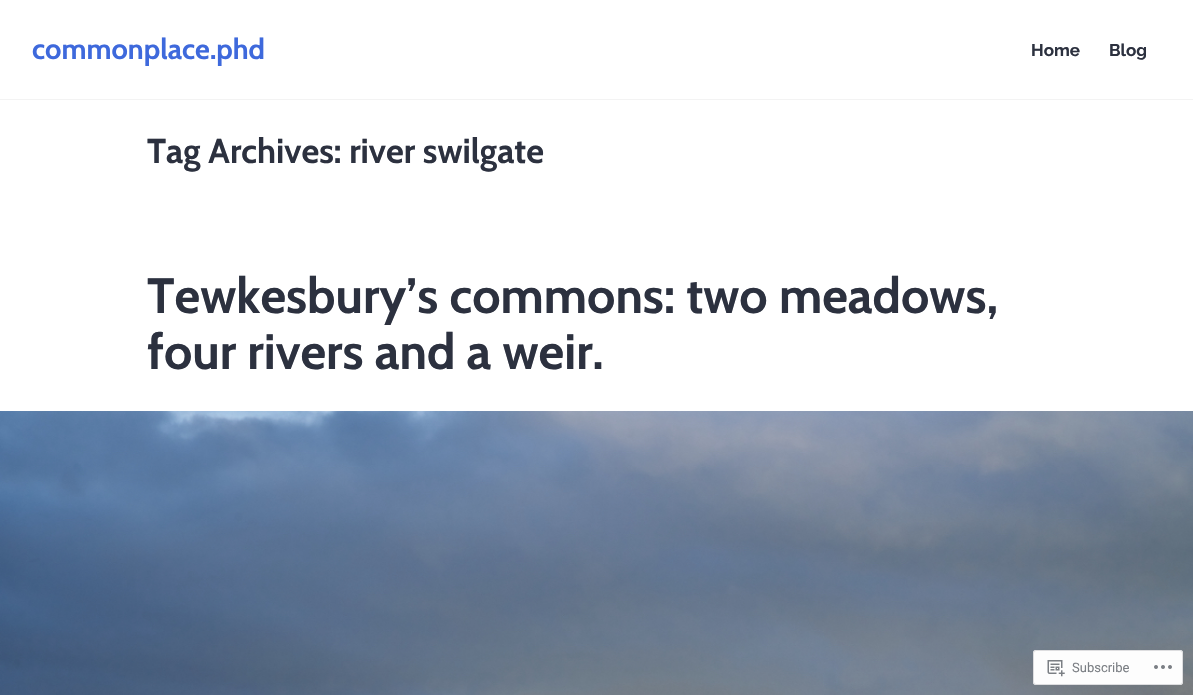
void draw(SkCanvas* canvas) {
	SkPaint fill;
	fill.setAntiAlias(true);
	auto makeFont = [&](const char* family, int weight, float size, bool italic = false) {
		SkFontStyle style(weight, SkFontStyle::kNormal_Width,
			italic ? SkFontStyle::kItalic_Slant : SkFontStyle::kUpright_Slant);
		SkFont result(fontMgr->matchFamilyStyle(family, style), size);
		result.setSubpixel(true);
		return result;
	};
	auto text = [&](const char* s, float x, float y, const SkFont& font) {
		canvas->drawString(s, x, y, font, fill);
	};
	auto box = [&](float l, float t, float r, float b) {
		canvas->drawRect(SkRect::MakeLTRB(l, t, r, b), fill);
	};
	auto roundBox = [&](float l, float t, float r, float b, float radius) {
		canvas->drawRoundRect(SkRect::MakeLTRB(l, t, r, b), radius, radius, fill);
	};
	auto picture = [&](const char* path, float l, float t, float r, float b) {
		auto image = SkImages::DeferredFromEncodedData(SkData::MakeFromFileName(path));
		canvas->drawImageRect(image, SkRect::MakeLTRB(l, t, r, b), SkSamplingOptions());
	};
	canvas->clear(0xFFFFFFFF);
	fill.setColor(0xFFF3F3F3);
	box(0, 99, 1193, 100);
	picture("image0.png", 0, 411, 1193, 695);
	fill.setColor(0xFAFFFFFF);
	roundBox(1033, 650, 1183, 685, 3);
	fill.setStyle(SkPaint::kStroke_Style);
	fill.setStrokeWidth(1);
	fill.setColor(0xFADCDCDE);
	canvas->drawRoundRect(SkRect::MakeLTRB(1033.5f, 650.5f, 1182.5f, 684.5f), 2.5f, 2.5f, fill);
	picture("image1.png", 1047, 660, 1065, 677);
	picture("image2.png", 1154, 665, 1172, 669);
	auto font1 = makeFont("Cabin", 700, 28.75f);
	fill.setStyle(SkPaint::kFill_Style);
	fill.setColor(0xFF3E69DC);
	text("commonplace.phd", 32, 59, font1);
	auto font2 = makeFont("Raleway", 700, 17);
	fill.setColor(0xFF2C313F);
	text("Home", 1031, 56, font2);
	text("Blog", 1109, 56, font2);
	auto font3 = makeFont("Cabin", 700, 34.5f);
	text("Tag Archives: river swilgate", 147, 163, font3);
	auto font4 = makeFont("Cabin", 700, 49.75f);
	text("Tewkesbury’s commons: two meadows,", 147, 313, font4);
	text("four rivers and a weir.", 147, 369, font4);
	auto font5 = makeFont("Roboto", 400, 13);
	fill.setColor(0xFF7B7F84);
	text("Subscribe", 1072, 672, font5);
}
